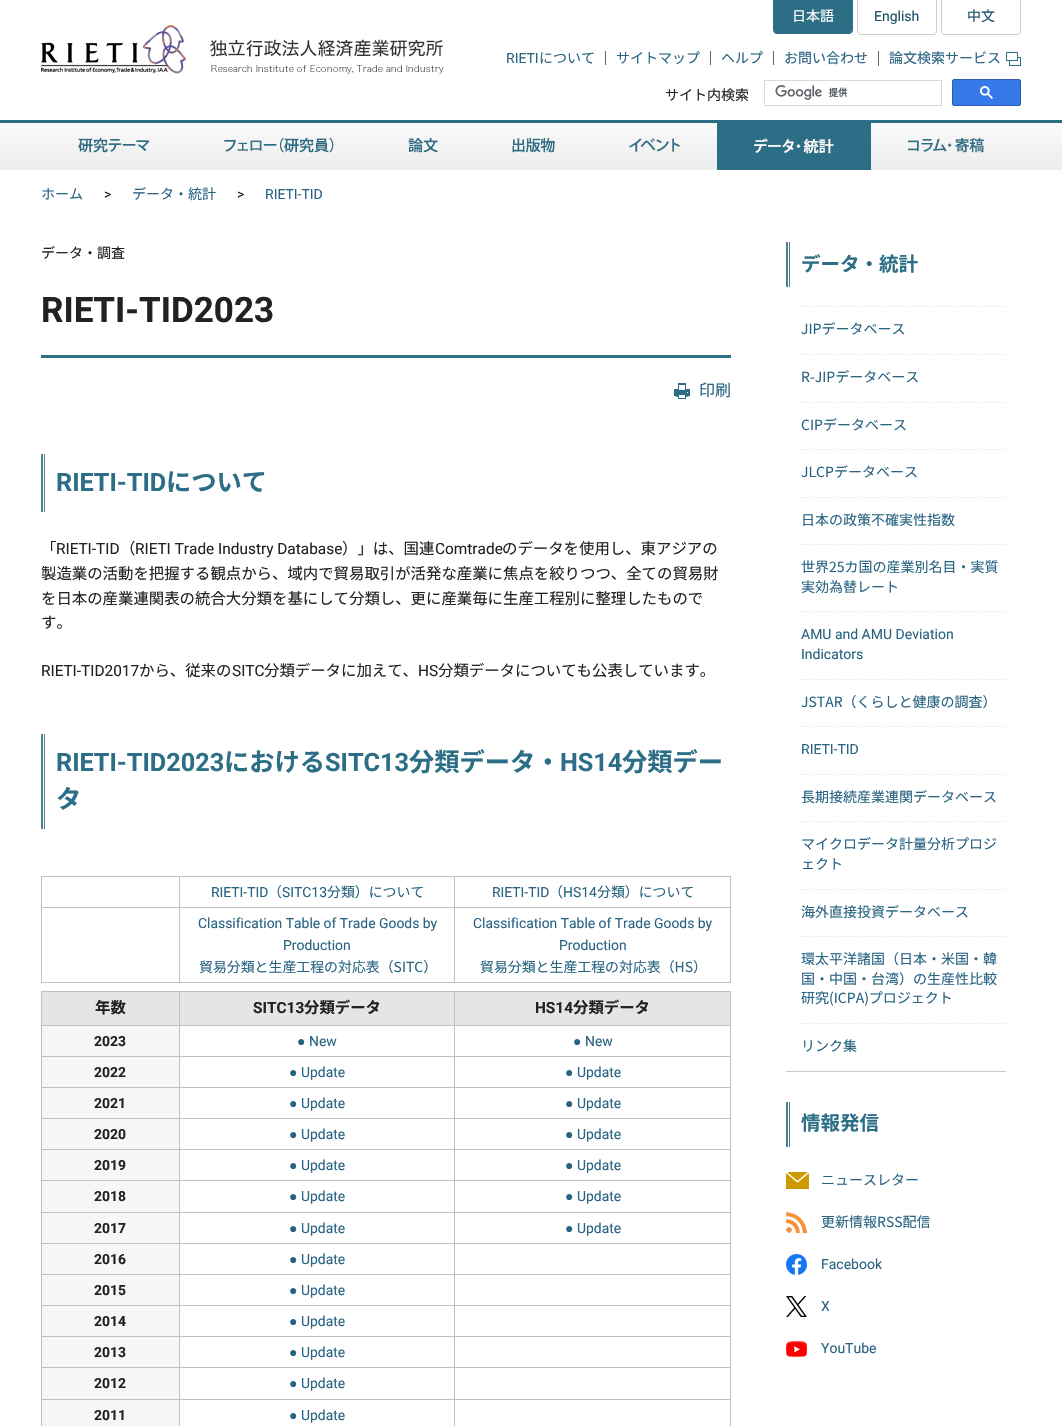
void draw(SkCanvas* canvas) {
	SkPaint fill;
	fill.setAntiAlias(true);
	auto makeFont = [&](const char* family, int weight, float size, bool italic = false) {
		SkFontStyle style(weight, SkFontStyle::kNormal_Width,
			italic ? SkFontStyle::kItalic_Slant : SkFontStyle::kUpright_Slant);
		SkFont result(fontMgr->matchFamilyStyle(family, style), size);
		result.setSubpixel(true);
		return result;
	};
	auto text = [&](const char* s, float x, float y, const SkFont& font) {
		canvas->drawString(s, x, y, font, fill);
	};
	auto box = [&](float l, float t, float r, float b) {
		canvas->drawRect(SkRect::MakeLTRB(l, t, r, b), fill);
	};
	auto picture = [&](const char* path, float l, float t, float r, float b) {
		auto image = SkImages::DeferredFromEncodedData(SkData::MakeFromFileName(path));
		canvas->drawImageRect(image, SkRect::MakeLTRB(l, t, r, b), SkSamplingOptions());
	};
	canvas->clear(0xFFFFFFFF);
	picture("image0.png", 41, 25, 444, 74);
	fill.setColor(0xFF2D6E87);
	canvas->drawPath(SkPathBuilder().moveTo(773, 0).lineTo(853, 0).lineTo(853, 30).cubicTo(853, 32, 851, 34, 849, 34).lineTo(777, 34).cubicTo(775, 34, 773, 32, 773, 30).close().detach(), fill);
	fill.setColor(0xFFCCCCCC);
	canvas->drawPath(SkPathBuilder(SkPathFillType::kEvenOdd).moveTo(857, 0).lineTo(937, 0).lineTo(937, 31).cubicTo(937, 33, 935, 35, 933, 35).lineTo(861, 35).cubicTo(859, 35, 857, 33, 857, 31).close().moveTo(858, 0).lineTo(936, 0).lineTo(936, 31).cubicTo(936, 33, 935, 34, 933, 34).lineTo(861, 34).cubicTo(859, 34, 858, 33, 858, 31).close().detach(), fill);
	canvas->drawPath(SkPathBuilder(SkPathFillType::kEvenOdd).moveTo(941, 0).lineTo(1021, 0).lineTo(1021, 31).cubicTo(1021, 33, 1019, 35, 1017, 35).lineTo(945, 35).cubicTo(943, 35, 941, 33, 941, 31).close().moveTo(942, 0).lineTo(1020, 0).lineTo(1020, 31).cubicTo(1020, 33, 1019, 34, 1017, 34).lineTo(945, 34).cubicTo(943, 34, 942, 33, 942, 31).close().detach(), fill);
	fill.setColor(0xFF666666);
	box(605, 51, 606, 65);
	box(710, 51, 711, 65);
	box(773, 51, 774, 65);
	box(878, 51, 879, 66);
	picture("image1.png", 1006, 52, 1021, 66);
	fill.setStyle(SkPaint::kStroke_Style);
	fill.setStrokeWidth(1);
	fill.setColor(0xFFD9D9D9);
	canvas->drawRect(SkRect::MakeLTRB(764.5f, 80.5f, 941.5f, 105.5f), fill);
	picture("image2.png", 775, 85, 848, 100);
	fill.setStyle(SkPaint::kFill_Style);
	fill.setColor(0xFF357AE8);
	canvas->drawRoundRect(SkRect::MakeLTRB(952.5f, 79.5f, 1020.5f, 105.5f), 1.5f, 1.5f, fill);
	fill.setStyle(SkPaint::kStroke_Style);
	fill.setColor(0xFF2F5BB7);
	canvas->drawRoundRect(SkRect::MakeLTRB(952.5f, 79.5f, 1020.5f, 105.5f), 1.5f, 1.5f, fill);
	picture("image3.png", 980, 86, 993, 99);
	picture("image4.png", 0, 123, 1062, 170);
	fill.setStyle(SkPaint::kFill_Style);
	fill.setColor(0xFF2D6E87);
	box(0, 120, 1062, 123);
	picture("image5.png", 78, 138, 150, 153);
	picture("image6.png", 224, 138, 371, 153);
	picture("image7.png", 408, 138, 475, 153);
	picture("image8.png", 512, 138, 584, 153);
	picture("image9.png", 629, 138, 701, 153);
	picture("image10.png", 717, 123, 871, 170);
	picture("image11.png", 908, 138, 984, 153);
	box(41, 355, 731, 358);
	picture("image12.png", 674, 383, 690, 399);
	picture("image13.png", 41, 454, 45, 512);
	picture("image14.png", 41, 734, 45, 829);
	fill.setColor(0xFFC0C0C0);
	box(41, 876, 731, 877);
	box(730, 876, 731, 983);
	box(41, 982, 731, 983);
	box(41, 876, 42, 983);
	box(454, 907, 731, 908);
	box(454, 907, 455, 983);
	box(179, 907, 455, 908);
	box(179, 907, 180, 983);
	box(41, 907, 180, 908);
	box(179, 876, 180, 908);
	box(454, 876, 455, 908);
	box(41, 991, 731, 992);
	box(730, 991, 731, 1426);
	box(41, 991, 42, 1426);
	fill.setColor(0xFFE5E5E5);
	box(42, 992, 179, 1025);
	box(180, 992, 454, 1025);
	fill.setColor(0xFFC0C0C0);
	box(454, 1025, 731, 1026);
	box(454, 1056, 731, 1057);
	box(454, 1087, 731, 1088);
	box(454, 1118, 731, 1119);
	box(454, 1149, 731, 1150);
	box(454, 1180, 731, 1181);
	box(454, 1212, 731, 1213);
	box(454, 1243, 731, 1244);
	box(454, 1274, 731, 1275);
	box(454, 1305, 731, 1306);
	box(454, 1336, 731, 1337);
	box(454, 1367, 731, 1368);
	box(454, 1399, 731, 1400);
	box(454, 1399, 455, 1426);
	box(179, 1399, 455, 1400);
	box(454, 1367, 455, 1400);
	box(179, 1367, 455, 1368);
	box(454, 1336, 455, 1368);
	box(179, 1336, 455, 1337);
	box(454, 1305, 455, 1337);
	box(179, 1305, 455, 1306);
	box(454, 1274, 455, 1306);
	box(179, 1274, 455, 1275);
	box(454, 1243, 455, 1275);
	box(179, 1243, 455, 1244);
	box(454, 1212, 455, 1244);
	box(179, 1212, 455, 1213);
	box(454, 1180, 455, 1213);
	box(179, 1180, 455, 1181);
	box(454, 1149, 455, 1181);
	box(179, 1149, 455, 1150);
	box(454, 1118, 455, 1150);
	box(179, 1118, 455, 1119);
	box(454, 1087, 455, 1119);
	box(179, 1087, 455, 1088);
	box(454, 1056, 455, 1088);
	box(179, 1056, 455, 1057);
	box(454, 1025, 455, 1057);
	box(179, 1025, 455, 1026);
	box(179, 1399, 180, 1426);
	box(41, 1399, 180, 1400);
	box(179, 1367, 180, 1400);
	box(41, 1367, 180, 1368);
	box(179, 1336, 180, 1368);
	box(41, 1336, 180, 1337);
	box(179, 1305, 180, 1337);
	box(41, 1305, 180, 1306);
	box(179, 1274, 180, 1306);
	box(41, 1274, 180, 1275);
	box(179, 1243, 180, 1275);
	box(41, 1243, 180, 1244);
	box(179, 1212, 180, 1244);
	box(41, 1212, 180, 1213);
	box(179, 1180, 180, 1213);
	box(41, 1180, 180, 1181);
	box(179, 1149, 180, 1181);
	box(41, 1149, 180, 1150);
	box(179, 1118, 180, 1150);
	box(41, 1118, 180, 1119);
	box(179, 1087, 180, 1119);
	box(41, 1087, 180, 1088);
	box(179, 1056, 180, 1088);
	box(41, 1056, 180, 1057);
	box(179, 1025, 180, 1057);
	box(41, 1025, 180, 1026);
	box(179, 991, 180, 1026);
	fill.setColor(0xFFE5E5E5);
	box(455, 992, 730, 1025);
	fill.setColor(0xFFC0C0C0);
	box(454, 991, 455, 1026);
	fill.setColor(0xFFF6F6F6);
	box(42, 1026, 179, 1056);
	box(42, 1057, 179, 1087);
	box(42, 1088, 179, 1118);
	box(42, 1119, 179, 1149);
	box(42, 1150, 179, 1180);
	box(42, 1181, 179, 1212);
	box(42, 1213, 179, 1243);
	box(42, 1244, 179, 1274);
	box(42, 1275, 179, 1305);
	box(42, 1306, 179, 1336);
	box(42, 1337, 179, 1367);
	box(42, 1368, 179, 1399);
	box(42, 1400, 179, 1426);
	picture("image15.png", 786, 242, 790, 287);
	fill.setColor(0xFFCCCCCC);
	box(786, 1071, 1006, 1072);
	picture("image16.png", 801, 306, 1006, 307);
	picture("image16.png", 801, 354, 1006, 355);
	picture("image16.png", 801, 402, 1006, 403);
	picture("image16.png", 801, 449, 1006, 450);
	picture("image16.png", 801, 497, 1006, 498);
	picture("image16.png", 801, 544, 1006, 545);
	picture("image16.png", 801, 611, 1006, 612);
	picture("image16.png", 801, 679, 1006, 680);
	picture("image16.png", 801, 726, 1006, 727);
	picture("image16.png", 801, 774, 1006, 775);
	picture("image16.png", 801, 821, 1006, 822);
	picture("image16.png", 801, 889, 1006, 890);
	picture("image16.png", 801, 936, 1006, 937);
	picture("image16.png", 801, 1023, 1006, 1024);
	picture("image15.png", 786, 1102, 790, 1147);
	picture("image17.png", 786, 1172, 809, 1189);
	picture("image18.png", 786, 1212, 807, 1233);
	picture("image19.png", 786, 1254, 807, 1275);
	picture("image20.png", 786, 1296, 807, 1317);
	picture("image21.png", 786, 1341, 807, 1357);
	auto font1 = makeFont("Noto Sans JP", 400, 14);
	fill.setColor(0xFFFFFFFF);
	text("日本語", 792, 21, font1);
	auto font2 = makeFont("Roboto", 400, 14);
	fill.setColor(0xFF1F4F67);
	text("English", 874, 21, font2);
	text("中文", 967, 21, font1);
	fill.setColor(0xFF286382);
	text("RIETI", 506, 63, font2);
	text("について", 539, 63, font1);
	text("サイトマップ", 616, 63, font1);
	text("ヘルプ", 721, 63, font1);
	text("お問い合わせ", 784, 63, font1);
	text("論文検索サービス", 889, 63, font1);
	fill.setColor(0xFF222222);
	text("サイト内検索", 665, 100, font1);
	fill.setColor(0xFF286382);
	text("ホーム", 41, 199, font1);
	fill.setColor(0xFF222222);
	text(">", 104, 199, font2);
	fill.setColor(0xFF286382);
	text("データ・統計", 132, 199, font1);
	fill.setColor(0xFF222222);
	text(">", 237, 199, font2);
	fill.setColor(0xFF286382);
	text("RIETI-TID", 265, 199, font2);
	fill.setColor(0xFF222222);
	text("データ・調査", 41, 258, font1);
	auto font3 = makeFont("Roboto", 700, 35);
	text("RIETI-TID2023", 41, 322, font3);
	auto font4 = makeFont("Noto Sans JP", 400, 16);
	fill.setColor(0xFF286382);
	text("印刷", 699, 396, font4);
	auto font5 = makeFont("Roboto", 700, 25.25f);
	fill.setColor(0xFF2D6E87);
	text("RIETI-TID", 56, 491, font5);
	auto font6 = makeFont("Noto Sans JP", 700, 25.25f);
	text("について", 166, 491, font6);
	auto font7 = makeFont("Noto Sans JP", 400, 15.4f);
	fill.setColor(0xFF222222);
	text("「", 41, 554, font7);
	auto font8 = makeFont("Roboto", 400, 15.4f);
	text("RIETI-TID", 56, 554, font8);
	text("（", 120, 554, font7);
	text("RIETI Trade Industry Database", 135, 554, font8);
	text("）」は、国連", 342, 554, font7);
	text("Comtrade", 435, 554, font8);
	text("のデータを使用し、東アジアの", 502, 554, font7);
	text("製造業の活動を把握する観点から、域内で貿易取引が活発な産業に焦点を絞りつつ、全ての貿易財", 41, 579, font7);
	text("を日本の産業連関表の統合大分類を基にして分類し、更に産業毎に生産工程別に整理したもので", 41, 604, font7);
	text("す。", 41, 628, font7);
	text("RIETI-TID2017", 41, 676, font8);
	text("から、従来の", 139, 676, font7);
	text("SITC", 232, 676, font8);
	text("分類データに加えて、", 264, 676, font7);
	text("HS", 418, 676, font8);
	text("分類データについても公表しています。", 438, 676, font7);
	fill.setColor(0xFF2D6E87);
	text("RIETI-TID2023", 56, 771, font5);
	text("における", 224, 771, font6);
	text("SITC13", 325, 771, font5);
	text("分類データ・", 409, 771, font6);
	text("HS14", 560, 771, font5);
	text("分類デー", 622, 771, font6);
	text("タ", 56, 808, font6);
	auto font9 = makeFont("Roboto", 400, 13.9f);
	fill.setColor(0xFF286382);
	text("RIETI-TID", 211, 897, font9);
	auto font10 = makeFont("Noto Sans JP", 400, 13.9f);
	text("（", 268, 897, font10);
	text("SITC13", 282, 897, font9);
	text("分類）について", 327, 897, font10);
	text("RIETI-TID", 492, 897, font9);
	text("（", 549, 897, font10);
	text("HS14", 563, 897, font9);
	text("分類）について", 597, 897, font10);
	text("Classification Table of Trade Goods by", 198, 928, font9);
	text("Production", 283, 950, font9);
	text("貿易分類と生産工程の対応表（SITC）", 199, 972, font10);
	text("Classification Table of Trade Goods by", 473, 928, font9);
	text("Production", 559, 950, font9);
	text("貿易分類と生産工程の対応表（HS）", 480, 972, font10);
	auto font11 = makeFont("Noto Sans JP", 700, 15.4f);
	fill.setColor(0xFF222222);
	text("年数", 95, 1013, font11);
	auto font12 = makeFont("Roboto", 700, 15.4f);
	text("SITC13", 253, 1013, font12);
	text("分類データ", 304, 1013, font11);
	text("HS14", 535, 1013, font12);
	text("分類データ", 573, 1013, font11);
	auto font13 = makeFont("Roboto", 700, 13.9f);
	text("2023", 94, 1046, font13);
	auto font14 = makeFont("Liberation Sans", 400, 13.9f);
	fill.setColor(0xFF286382);
	text("●", 297, 1046, font14);
	text("New", 309, 1046, font9);
	text("●", 573, 1046, font14);
	text("New", 585, 1046, font9);
	fill.setColor(0xFF222222);
	text("2022", 94, 1077, font13);
	fill.setColor(0xFF286382);
	text("●", 289, 1077, font14);
	text("Update", 301, 1077, font9);
	text("●", 565, 1077, font14);
	text("Update", 577, 1077, font9);
	fill.setColor(0xFF222222);
	text("2021", 94, 1108, font13);
	fill.setColor(0xFF286382);
	text("●", 289, 1108, font14);
	text("Update", 301, 1108, font9);
	text("●", 565, 1108, font14);
	text("Update", 577, 1108, font9);
	fill.setColor(0xFF222222);
	text("2020", 94, 1139, font13);
	fill.setColor(0xFF286382);
	text("●", 289, 1139, font14);
	text("Update", 301, 1139, font9);
	text("●", 565, 1139, font14);
	text("Update", 577, 1139, font9);
	fill.setColor(0xFF222222);
	text("2019", 94, 1170, font13);
	fill.setColor(0xFF286382);
	text("●", 289, 1170, font14);
	text("Update", 301, 1170, font9);
	text("●", 565, 1170, font14);
	text("Update", 577, 1170, font9);
	fill.setColor(0xFF222222);
	text("2018", 94, 1201, font13);
	fill.setColor(0xFF286382);
	text("●", 289, 1201, font14);
	text("Update", 301, 1201, font9);
	text("●", 565, 1201, font14);
	text("Update", 577, 1201, font9);
	fill.setColor(0xFF222222);
	text("2017", 94, 1233, font13);
	fill.setColor(0xFF286382);
	text("●", 289, 1233, font14);
	text("Update", 301, 1233, font9);
	text("●", 565, 1233, font14);
	text("Update", 577, 1233, font9);
	fill.setColor(0xFF222222);
	text("2016", 94, 1264, font13);
	fill.setColor(0xFF286382);
	text("●", 289, 1264, font14);
	text("Update", 301, 1264, font9);
	fill.setColor(0xFF222222);
	text("2015", 94, 1295, font13);
	fill.setColor(0xFF286382);
	text("●", 289, 1295, font14);
	text("Update", 301, 1295, font9);
	fill.setColor(0xFF222222);
	text("2014", 94, 1326, font13);
	fill.setColor(0xFF286382);
	text("●", 289, 1326, font14);
	text("Update", 301, 1326, font9);
	fill.setColor(0xFF222222);
	text("2013", 94, 1357, font13);
	fill.setColor(0xFF286382);
	text("●", 289, 1357, font14);
	text("Update", 301, 1357, font9);
	fill.setColor(0xFF222222);
	text("2012", 94, 1388, font13);
	fill.setColor(0xFF286382);
	text("●", 289, 1388, font14);
	text("Update", 301, 1388, font9);
	fill.setColor(0xFF222222);
	text("2011", 94, 1420, font13);
	fill.setColor(0xFF286382);
	text("●", 289, 1420, font14);
	text("Update", 301, 1420, font9);
	auto font15 = makeFont("Noto Sans JP", 700, 19.5f);
	fill.setColor(0xFF2D6E87);
	text("データ・統計", 801, 271, font15);
	fill.setColor(0xFF286382);
	text("JIPデータベース", 801, 334, font1);
	text("R-JIPデータベース", 801, 382, font1);
	text("CIPデータベース", 801, 430, font1);
	text("JLCPデータベース", 801, 477, font1);
	text("日本の政策不確実性指数", 801, 525, font1);
	text("世界25カ国の産業別名目・実質", 801, 572, font1);
	text("実効為替レート", 801, 592, font1);
	text("AMU and AMU Deviation", 801, 639, font2);
	text("Indicators", 801, 659, font2);
	text("JSTAR（くらしと健康の調査）", 801, 707, font1);
	text("RIETI-TID", 801, 754, font2);
	text("長期接続産業連関データベース", 801, 802, font1);
	text("マイクロデータ計量分析プロジ", 801, 849, font1);
	text("ェクト", 801, 869, font1);
	text("海外直接投資データベース", 801, 917, font1);
	text("環太平洋諸国（日本・米国・韓", 801, 964, font1);
	text("国・中国・台湾）の生産性比較", 801, 984, font1);
	text("研究(ICPA)プロジェクト", 801, 1003, font1);
	text("リンク集", 801, 1051, font1);
	fill.setColor(0xFF2D6E87);
	text("情報発信", 801, 1130, font15);
	fill.setColor(0xFF286382);
	text("ニュースレター", 821, 1185, font1);
	text("更新情報RSS配信", 821, 1227, font1);
	text("Facebook", 821, 1269, font2);
	text("X", 821, 1311, font2);
	text("YouTube", 821, 1353, font2);
}
